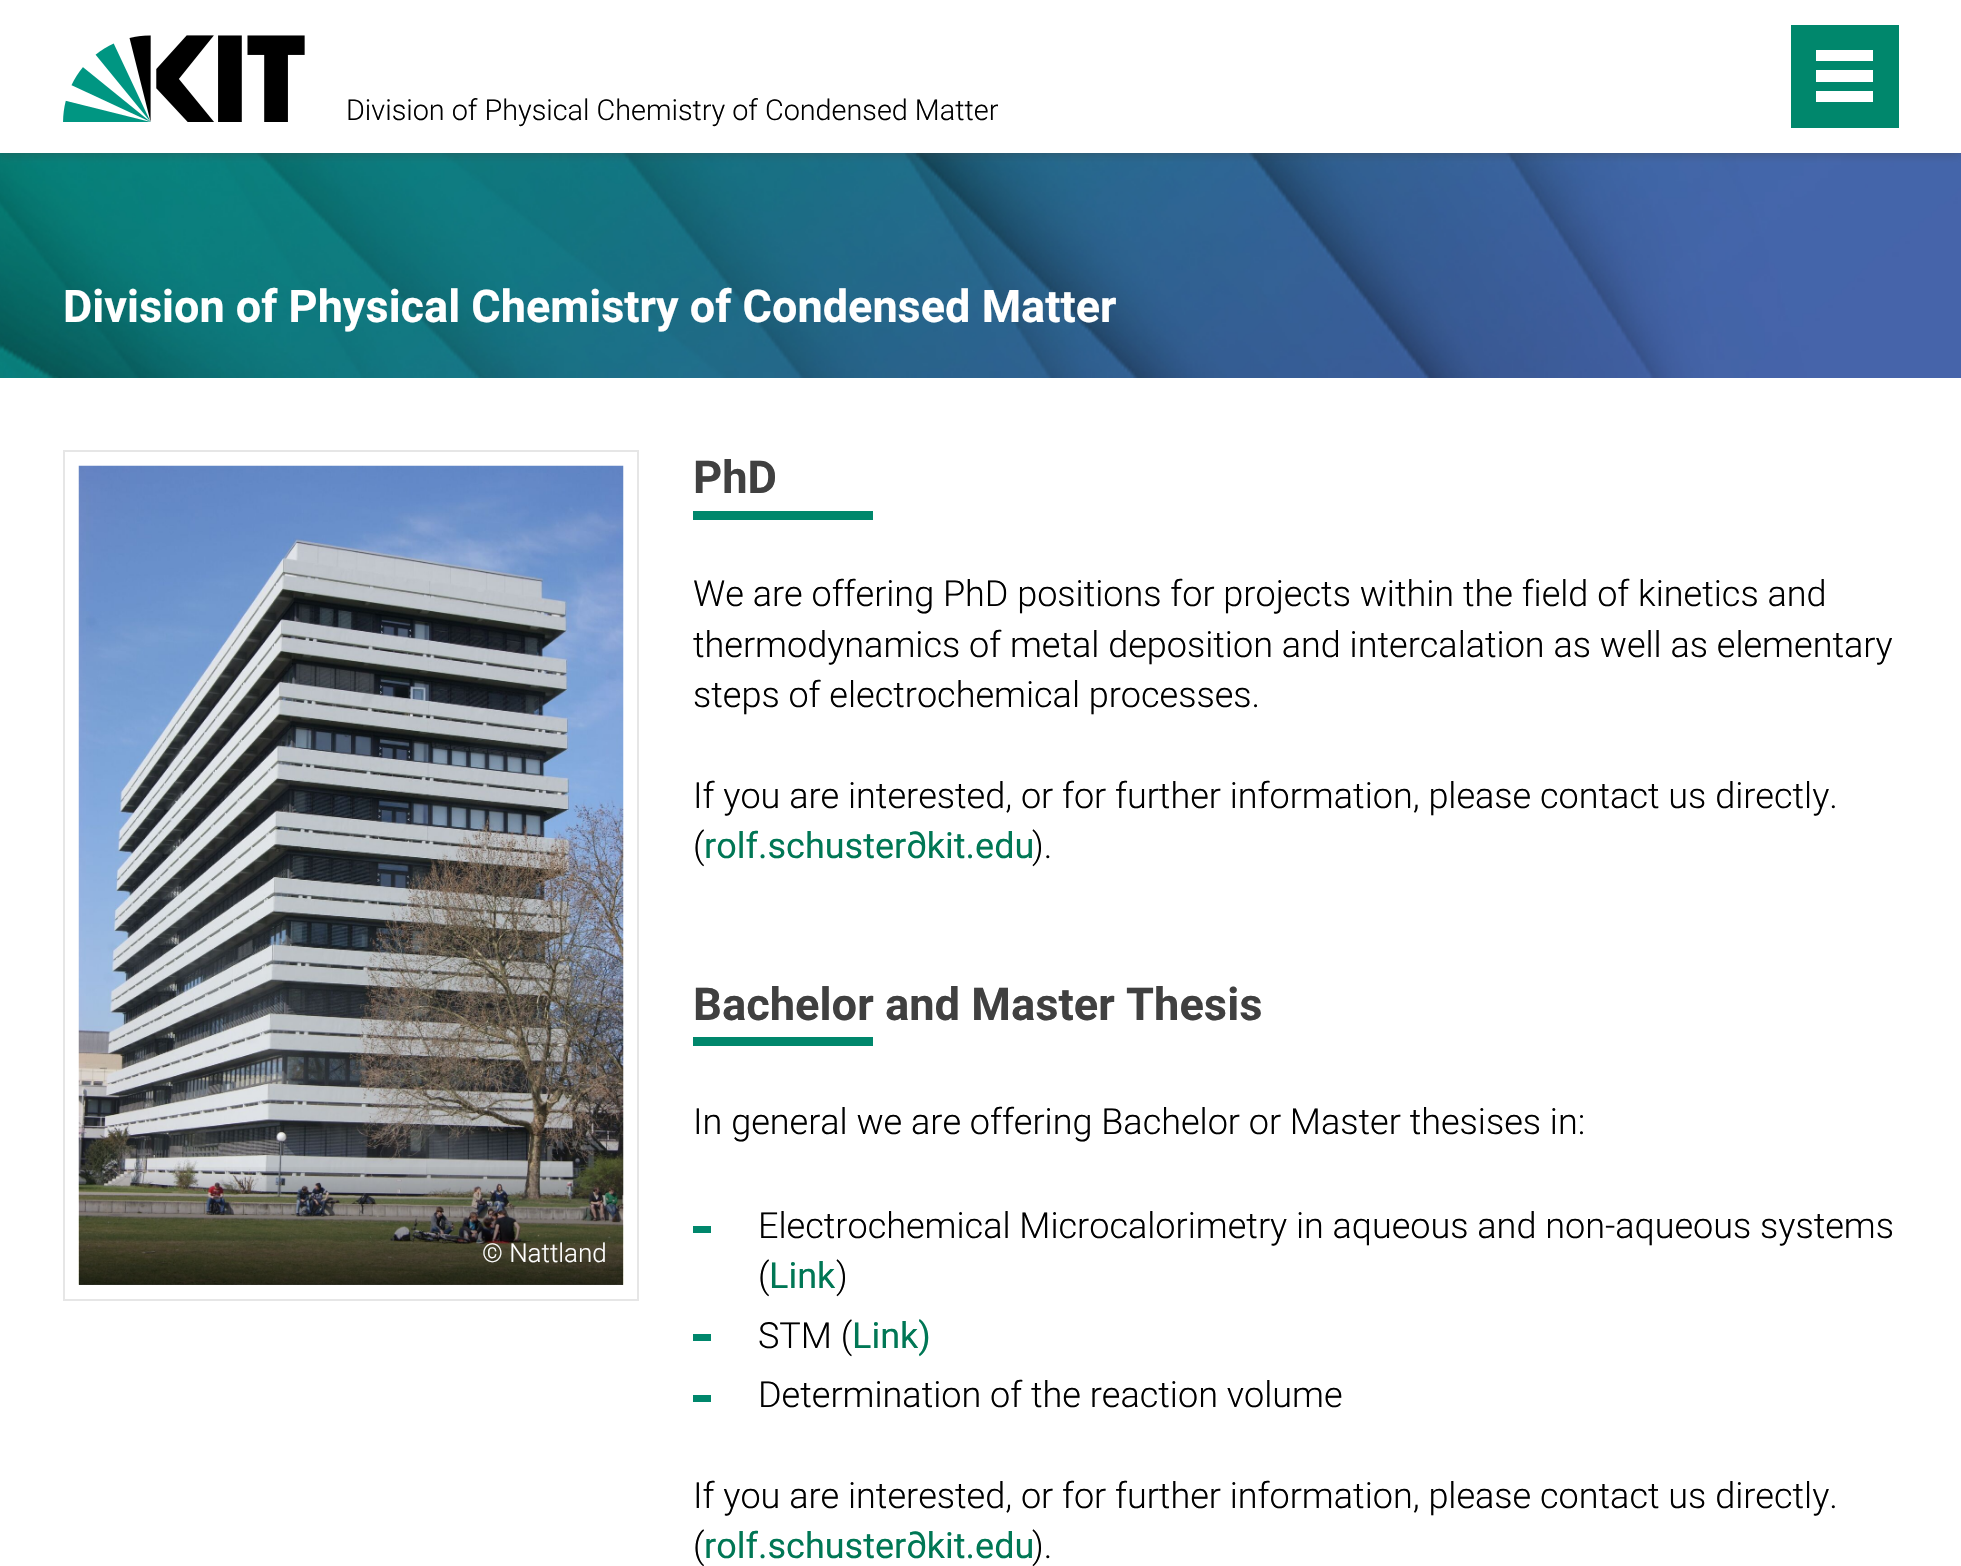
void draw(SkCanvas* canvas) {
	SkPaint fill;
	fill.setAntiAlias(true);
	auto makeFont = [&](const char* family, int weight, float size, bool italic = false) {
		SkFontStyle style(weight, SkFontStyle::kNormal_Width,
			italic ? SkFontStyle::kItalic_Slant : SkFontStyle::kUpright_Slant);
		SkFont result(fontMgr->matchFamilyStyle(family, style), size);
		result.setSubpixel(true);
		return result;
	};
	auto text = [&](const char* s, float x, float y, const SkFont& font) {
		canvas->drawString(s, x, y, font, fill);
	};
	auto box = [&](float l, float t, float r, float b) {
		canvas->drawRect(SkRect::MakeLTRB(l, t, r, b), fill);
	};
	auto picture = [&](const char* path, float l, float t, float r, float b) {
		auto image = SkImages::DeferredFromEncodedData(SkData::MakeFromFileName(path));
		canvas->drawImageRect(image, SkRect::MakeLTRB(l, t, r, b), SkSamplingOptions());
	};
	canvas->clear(0xFFFFFFFF);
	picture("image1.png", 0, 153, 1961, 378);
	canvas->save();
	canvas->clipRect(SkRect::MakeLTRB(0, 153, 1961, 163));
	fill.setColor(0x80404040);
	fill.setMaskFilter(SkMaskFilter::MakeBlur(kNormal_SkBlurStyle, 5.5f));
	canvas->drawRect(SkRect::MakeLTRB(0, 0, 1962, 153), fill);
	fill.setMaskFilter(nullptr);
	canvas->restore();
	picture("image0.png", 63, 35, 305, 122);
	fill.setColor(0xFF00876C);
	box(1791, 25, 1899, 128);
	fill.setColor(0xFFFFFFFF);
	box(1816, 91, 1873, 102);
	box(1816, 70, 1873, 82);
	box(1816, 50, 1873, 61);
	fill.setStyle(SkPaint::kStroke_Style);
	fill.setStrokeWidth(2);
	fill.setColor(0xFFE6E6E6);
	canvas->drawRect(SkRect::MakeLTRB(64, 451, 638, 1300), fill);
	picture("image2.png", 78, 465, 624, 1285);
	fill.setStyle(SkPaint::kFill_Style);
	{
		const SkColor colors[] = {0xB3000000, 0x00000000};
		const float stops[] = {0, 1};
		const SkPoint ends[] = {{351, 1285}, {351, 1163}};
		fill.setShader(SkGradientShader::MakeLinear(ends, colors, stops, 2, SkTileMode::kClamp));
		fill.setAlpha(255);
	}
	box(79, 1167, 623, 1285);
	fill.setShader(nullptr);
	fill.setColor(0xFF00876C);
	box(693, 511, 873, 520);
	box(693, 1037, 873, 1046);
	box(693, 1226, 711, 1233);
	box(693, 1334, 711, 1341);
	box(693, 1395, 711, 1402);
	auto font1 = makeFont("Roboto", 300, 28.8f);
	fill.setColor(0xFF000000);
	text("Division of Physical Chemistry of Condensed Matter", 346, 120, font1);
	auto font2 = makeFont("Roboto", 700, 45);
	fill.setColor(0xFFFFFFFF);
	text("Division of Physical Chemistry of Condensed Matter", 63, 322, font2);
	auto font3 = makeFont("Roboto", 300, 26);
	text("© Nattland", 482, 1262, font3);
	auto font4 = makeFont("Roboto", 700, 45.25f);
	fill.setColor(0xFF404040);
	text("PhD", 693, 493, font4);
	auto font5 = makeFont("Roboto", 300, 36);
	fill.setColor(0xFF000000);
	text("We are offering PhD positions for projects within the field of kinetics and", 693, 606, font5);
	text("thermodynamics of metal deposition and intercalation as well as elementary", 693, 657, font5);
	text("steps of electrochemical processes.", 693, 707, font5);
	text("If you are interested, or for further information, please contact us directly.", 693, 808, font5);
	text("(", 693, 858, font5);
	auto font6 = makeFont("Roboto", 400, 36);
	fill.setColor(0xFF007755);
	text("rolf.schuster∂kit.edu", 704, 858, font6);
	fill.setColor(0xFF000000);
	text(").", 1032, 858, font5);
	fill.setColor(0xFF404040);
	text("Bachelor and Master Thesis", 693, 1020, font4);
	fill.setColor(0xFF000000);
	text("In general we are offering Bachelor or Master thesises in:", 693, 1134, font5);
	text("Electrochemical Microcalorimetry in aqueous and non-aqueous systems", 758, 1238, font5);
	text("(", 758, 1288, font5);
	fill.setColor(0xFF007755);
	text("Link", 769, 1288, font6);
	fill.setColor(0xFF000000);
	text(")", 836, 1288, font5);
	text("STM (", 758, 1348, font5);
	fill.setColor(0xFF007755);
	text("Link)", 852, 1348, font6);
	fill.setColor(0xFF000000);
	text("Determination of the reaction volume", 758, 1407, font5);
	text("If you are interested, or for further information, please contact us directly.", 693, 1508, font5);
	text("(", 693, 1558, font5);
	fill.setColor(0xFF007755);
	text("rolf.schuster∂kit.edu", 704, 1558, font6);
	fill.setColor(0xFF000000);
	text(").", 1032, 1558, font5);
}
